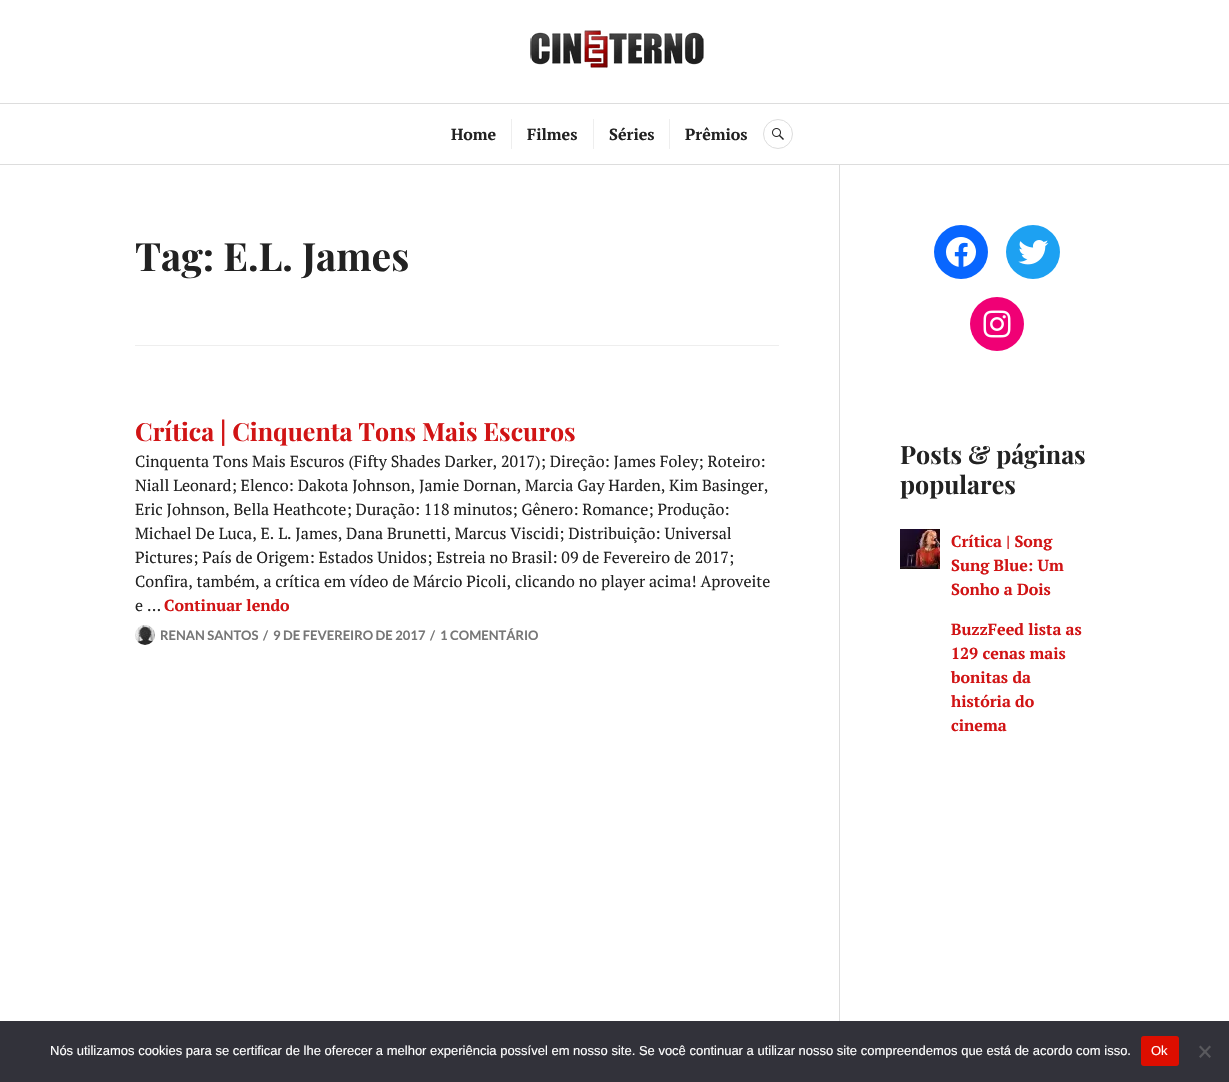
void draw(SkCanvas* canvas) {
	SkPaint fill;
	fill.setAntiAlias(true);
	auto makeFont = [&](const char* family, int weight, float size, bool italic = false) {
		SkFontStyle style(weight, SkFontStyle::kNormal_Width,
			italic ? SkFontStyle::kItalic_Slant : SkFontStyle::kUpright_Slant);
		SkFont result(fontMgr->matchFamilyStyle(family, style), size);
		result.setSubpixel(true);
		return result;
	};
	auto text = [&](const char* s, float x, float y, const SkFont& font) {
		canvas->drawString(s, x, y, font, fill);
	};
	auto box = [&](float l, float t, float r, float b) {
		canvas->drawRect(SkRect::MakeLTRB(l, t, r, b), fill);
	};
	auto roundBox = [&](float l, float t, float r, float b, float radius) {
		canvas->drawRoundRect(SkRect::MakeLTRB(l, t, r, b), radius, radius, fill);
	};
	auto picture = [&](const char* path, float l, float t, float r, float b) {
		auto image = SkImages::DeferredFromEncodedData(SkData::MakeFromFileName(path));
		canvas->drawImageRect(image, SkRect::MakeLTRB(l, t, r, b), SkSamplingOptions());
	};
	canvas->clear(0xFFFFFFFF);
	fill.setColor(0xFFDDDDDD);
	box(0, 164, 1229, 165);
	picture("image0.png", 530, 30, 704, 68);
	box(0, 103, 1229, 104);
	fill.setColor(0xFFEEEEEE);
	box(511, 119, 512, 149);
	box(593, 119, 594, 149);
	box(669, 119, 670, 149);
	fill.setStyle(SkPaint::kStroke_Style);
	fill.setStrokeWidth(1);
	fill.setColor(0xFFDDDDDD);
	canvas->drawCircle(778, 134, 14.5f, fill);
	picture("image1.png", 772, 128, 784, 140);
	fill.setStyle(SkPaint::kFill_Style);
	fill.setColor(0xFFEEEEEE);
	box(135, 345, 779, 346);
	picture("image2.png", 135, 625, 155, 645);
	fill.setColor(0xFFDDDDDD);
	box(839, 165, 840, 1021);
	fill.setColor(0xFF0866FF);
	canvas->drawCircle(961, 252, 27, fill);
	picture("image3.png", 946, 237, 976, 267);
	fill.setColor(0xFF1DA1F2);
	canvas->drawCircle(1033, 252, 27, fill);
	picture("image4.png", 1018, 240, 1049, 265);
	fill.setColor(0xFFF00075);
	canvas->drawCircle(997, 324, 27, fill);
	picture("image5.png", 983, 310, 1011, 338);
	picture("image6.png", 900, 529, 940, 569);
	fill.setColor(0xFF32323A);
	box(0, 1021, 1229, 1082);
	fill.setColor(0xFFDD0E00);
	roundBox(1141, 1036, 1179, 1066, 3);
	fill.setColor(0xFF59595D);
	canvas->drawPath(SkPathBuilder().moveTo(1209.5f, 1045.5f).lineTo(1211, 1047).lineTo(1200.5f, 1058).lineTo(1199, 1056.5f).close().detach(), fill);
	canvas->drawPath(SkPathBuilder().moveTo(1199, 1047).lineTo(1200.5f, 1045.5f).lineTo(1211, 1056.5f).lineTo(1209.5f, 1058).close().detach(), fill);
	auto font1 = makeFont("PT Serif", 700, 16);
	fill.setColor(0xFF222222);
	text("Home", 451, 140, font1);
	text("Filmes", 527, 140, font1);
	text("Séries", 609, 140, font1);
	text("Prêmios", 685, 140, font1);
	auto font2 = makeFont("Playfair Display", 700, 39);
	text("Tag: E.L. James", 135, 271, font2);
	auto font3 = makeFont("Playfair Display", 700, 25);
	fill.setColor(0xFFD11415);
	text("Crítica | Cinquenta Tons Mais Escuros", 135, 441, font3);
	auto font4 = makeFont("PT Serif", 400, 16);
	fill.setColor(0xFF222222);
	text("Cinquenta Tons Mais Escuros (Fifty Shades Darker, 2017); Direção: James Foley; Roteiro:", 135, 467, font4);
	text("Niall Leonard; Elenco: Dakota Johnson, Jamie Dornan, Marcia Gay Harden, Kim Basinger,", 135, 491, font4);
	text("Eric Johnson, Bella Heathcote; Duração: 118 minutos; Gênero: Romance; Produção:", 135, 515, font4);
	text("Michael De Luca, E. L. James, Dana Brunetti, Marcus Viscidi; Distribuição: Universal", 135, 539, font4);
	text("Pictures; País de Origem: Estados Unidos; Estreia no Brasil: 09 de Fevereiro de 2017;", 135, 563, font4);
	text("Confira, também, a crítica em vídeo de Márcio Picoli, clicando no player acima! Aproveite", 135, 587, font4);
	text("e …", 135, 611, font4);
	fill.setColor(0xFFD11415);
	text("Continuar lendo", 164, 611, font1);
	auto font5 = makeFont("Lato", 700, 13);
	fill.setColor(0xFF777777);
	text("RENAN SANTOS", 160, 640, font5);
	text("/", 263, 640, font5);
	text("9 DE FEVEREIRO DE 2017", 273, 640, font5);
	text("/", 430, 640, font5);
	text("1 COMENTÁRIO", 440, 640, font5);
	fill.setColor(0xFF222222);
	text("Posts & páginas", 900, 464, font3);
	text("populares", 900, 494, font3);
	fill.setColor(0xFFD11415);
	text("Crítica | Song", 951, 547, font1);
	text("Sung Blue: Um", 951, 571, font1);
	text("Sonho a Dois", 951, 595, font1);
	text("BuzzFeed lista as", 951, 635, font1);
	text("129 cenas mais", 951, 659, font1);
	text("bonitas da", 951, 683, font1);
	text("história do", 951, 707, font1);
	text("cinema", 951, 731, font1);
	auto font6 = makeFont("Liberation Sans", 400, 13);
	fill.setColor(0xFFFFFFFF);
	text("Nós utilizamos cookies para se certificar de lhe oferecer a melhor experiência possível em nosso site. Se você continuar a utilizar nosso site compreendemos que está de acordo com isso.", 50, 1055, font6);
	text("Ok", 1151, 1055, font6);
}
